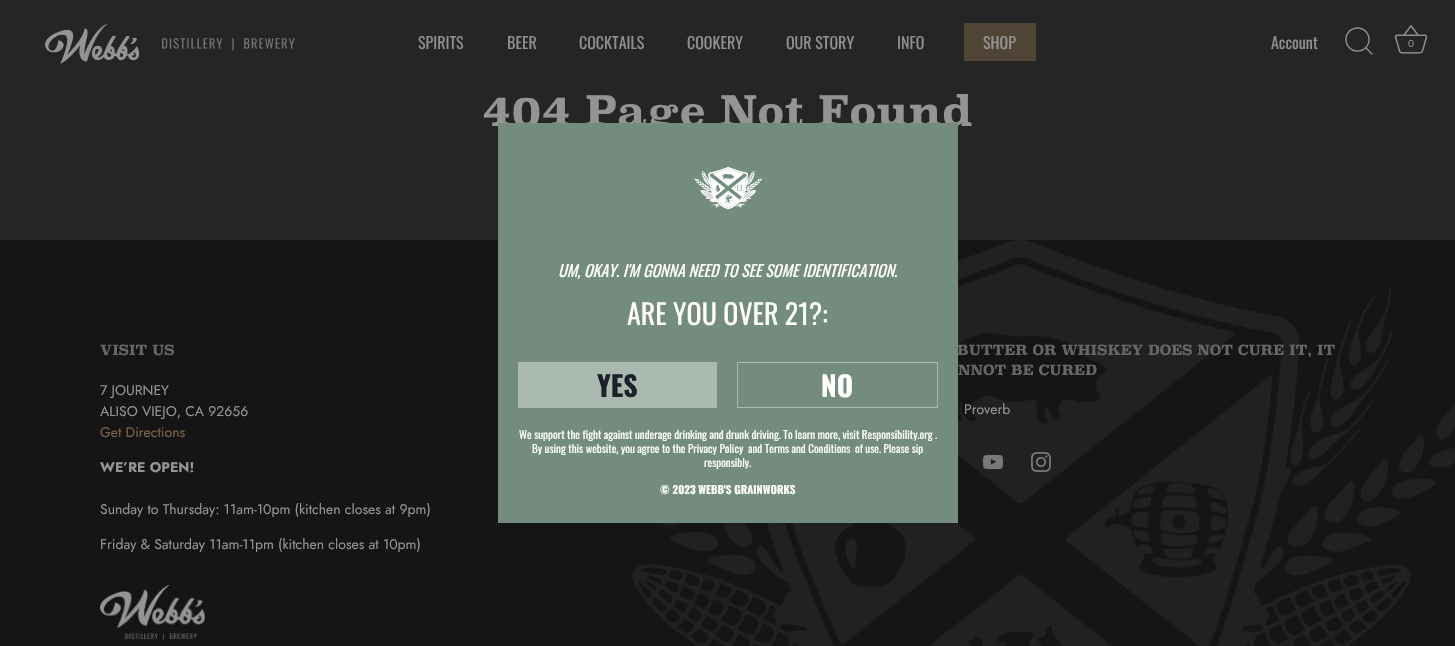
void draw(SkCanvas* canvas) {
	SkPaint fill;
	fill.setAntiAlias(true);
	auto makeFont = [&](const char* family, int weight, float size, bool italic = false) {
		SkFontStyle style(weight, SkFontStyle::kNormal_Width,
			italic ? SkFontStyle::kItalic_Slant : SkFontStyle::kUpright_Slant);
		SkFont result(fontMgr->matchFamilyStyle(family, style), size);
		result.setSubpixel(true);
		return result;
	};
	auto text = [&](const char* s, float x, float y, const SkFont& font) {
		canvas->drawString(s, x, y, font, fill);
	};
	auto box = [&](float l, float t, float r, float b) {
		canvas->drawRect(SkRect::MakeLTRB(l, t, r, b), fill);
	};
	auto picture = [&](const char* path, float l, float t, float r, float b) {
		auto image = SkImages::DeferredFromEncodedData(SkData::MakeFromFileName(path));
		canvas->drawImageRect(image, SkRect::MakeLTRB(l, t, r, b), SkSamplingOptions());
	};
	canvas->clear(0xFF262525);
	picture("image0.png", 45, 24, 295, 64);
	fill.setColor(0xFF504436);
	box(964, 23, 1036, 61);
	fill.setStyle(SkPaint::kStroke_Style);
	fill.setStrokeWidth(1.4f);
	fill.setColor(0xFF8F8F8E);
	canvas->drawCircle(1357.5f, 39.5f, 11.5f, fill);
	fill.setStrokeCap(SkPaint::kRound_Cap);
	fill.setStrokeJoin(SkPaint::kRound_Join);
	canvas->drawPath(SkPathBuilder().moveTo(1372, 54).lineTo(1366, 48).detach(), fill);
	picture("image1.png", 1394, 25, 1428, 54);
	fill.setStyle(SkPaint::kFill_Style);
	fill.setColor(0xFF151515);
	box(0, 240, 1455, 646);
	picture("image3.png", 632, 240, 1455, 646);
	picture("image4.png", 100, 585, 205, 640);
	picture("image5.png", 983, 454, 1003, 470);
	picture("image6.png", 1031, 452, 1051, 472);
	auto font1 = makeFont("Oswald", 400, 16);
	fill.setColor(0xFF8F8F8E);
	text("SPIRITS", 418, 49, font1);
	text("BEER", 507, 49, font1);
	text("COCKTAILS", 579, 49, font1);
	text("COOKERY", 687, 49, font1);
	text("OUR STORY", 786, 49, font1);
	text("INFO", 897, 49, font1);
	fill.setColor(0xFF949494);
	text("SHOP", 983, 49, font1);
	fill.setColor(0xFF8F8F8E);
	text("Account", 1271, 49, font1);
	auto font2 = makeFont("Jost", 400, 10);
	text("0", 1408, 47, font2);
	auto font3 = makeFont("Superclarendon", 700, 42);
	fill.setColor(0xFF949494);
	text("404 Page Not Found", 482, 126, font3);
	auto font4 = makeFont("Superclarendon", 700, 14);
	fill.setColor(0xFF666666);
	text("VISIT US", 100, 355, font4);
	auto font5 = makeFont("Jost", 400, 14);
	fill.setColor(0xFF949494);
	text("7 JOURNEY", 100, 395, font5);
	text("ALISO VIEJO, CA 92656", 100, 416, font5);
	fill.setColor(0xFF7A6347);
	text("Get Directions", 100, 437, font5);
	auto font6 = makeFont("Jost", 700, 14);
	fill.setColor(0xFF949494);
	text("WE’RE OPEN!", 100, 472, font6);
	text("Sunday to Thursday: 11am-10pm (kitchen closes at 9pm)", 100, 514, font5);
	text("Friday & Saturday 11am-11pm (kitchen closes at 10pm)", 100, 549, font5);
	fill.setColor(0xFF666666);
	text("BUTTER OR WHISKEY DOES NOT CURE IT, IT", 957, 355, font4);
	fill.setColor(0xFF738C7D);
	box(498, 123, 958, 523);
	fill.setStyle(SkPaint::kStroke_Style);
	fill.setStrokeWidth(1);
	fill.setStrokeCap(SkPaint::kButt_Cap);
	fill.setStrokeJoin(SkPaint::kMiter_Join);
	fill.setColor(0xFFABBAB1);
	canvas->drawRect(SkRect::MakeLTRB(737.5f, 362.5f, 937.5f, 407.5f), fill);
	auto font7 = makeFont("Oswald", 700, 28);
	fill.setStyle(SkPaint::kFill_Style);
	fill.setColor(0xFFFFFFFF);
	text("NO", 821, 397, font7);
	fill.setColor(0xFFABBAB1);
	box(518, 362, 717, 408);
	fill.setColor(0xFF1D2129);
	text("YES", 597, 397, font7);
	picture("image2.png", 694, 167, 762, 210);
	auto font8 = makeFont("Oswald", 700, 11);
	fill.setColor(0xFFFFFFFF);
	text("© 2023 WEBB'S GRAINWORKS", 660, 494, font8);
	auto font9 = makeFont("Oswald", 400, 11);
	text("responsibly.", 704, 467, font9);
	text("of use. Please sip", 855, 453, font9);
	text("and Terms and Conditions", 748, 453, font9);
	text("By using this website, you agree to the Privacy Policy", 532, 453, font9);
	text("We support the fight against underage drinking and drunk driving. To learn more, visit Responsibility.org .", 519, 439, font9);
	auto font10 = makeFont("Oswald", 400, 28);
	text("ARE YOU OVER 21?:", 627, 325, font10);
	auto font11 = makeFont("Oswald", 400, 16, true);
	text("UM, OKAY. I'M GONNA NEED TO SEE SOME IDENTIFICATION.", 558, 277, font11);
	fill.setColor(0xFF666666);
	text("NNOT BE CURED", 958, 375, font4);
	fill.setColor(0xFF949494);
	text("Proverb", 964, 414, font5);
}
